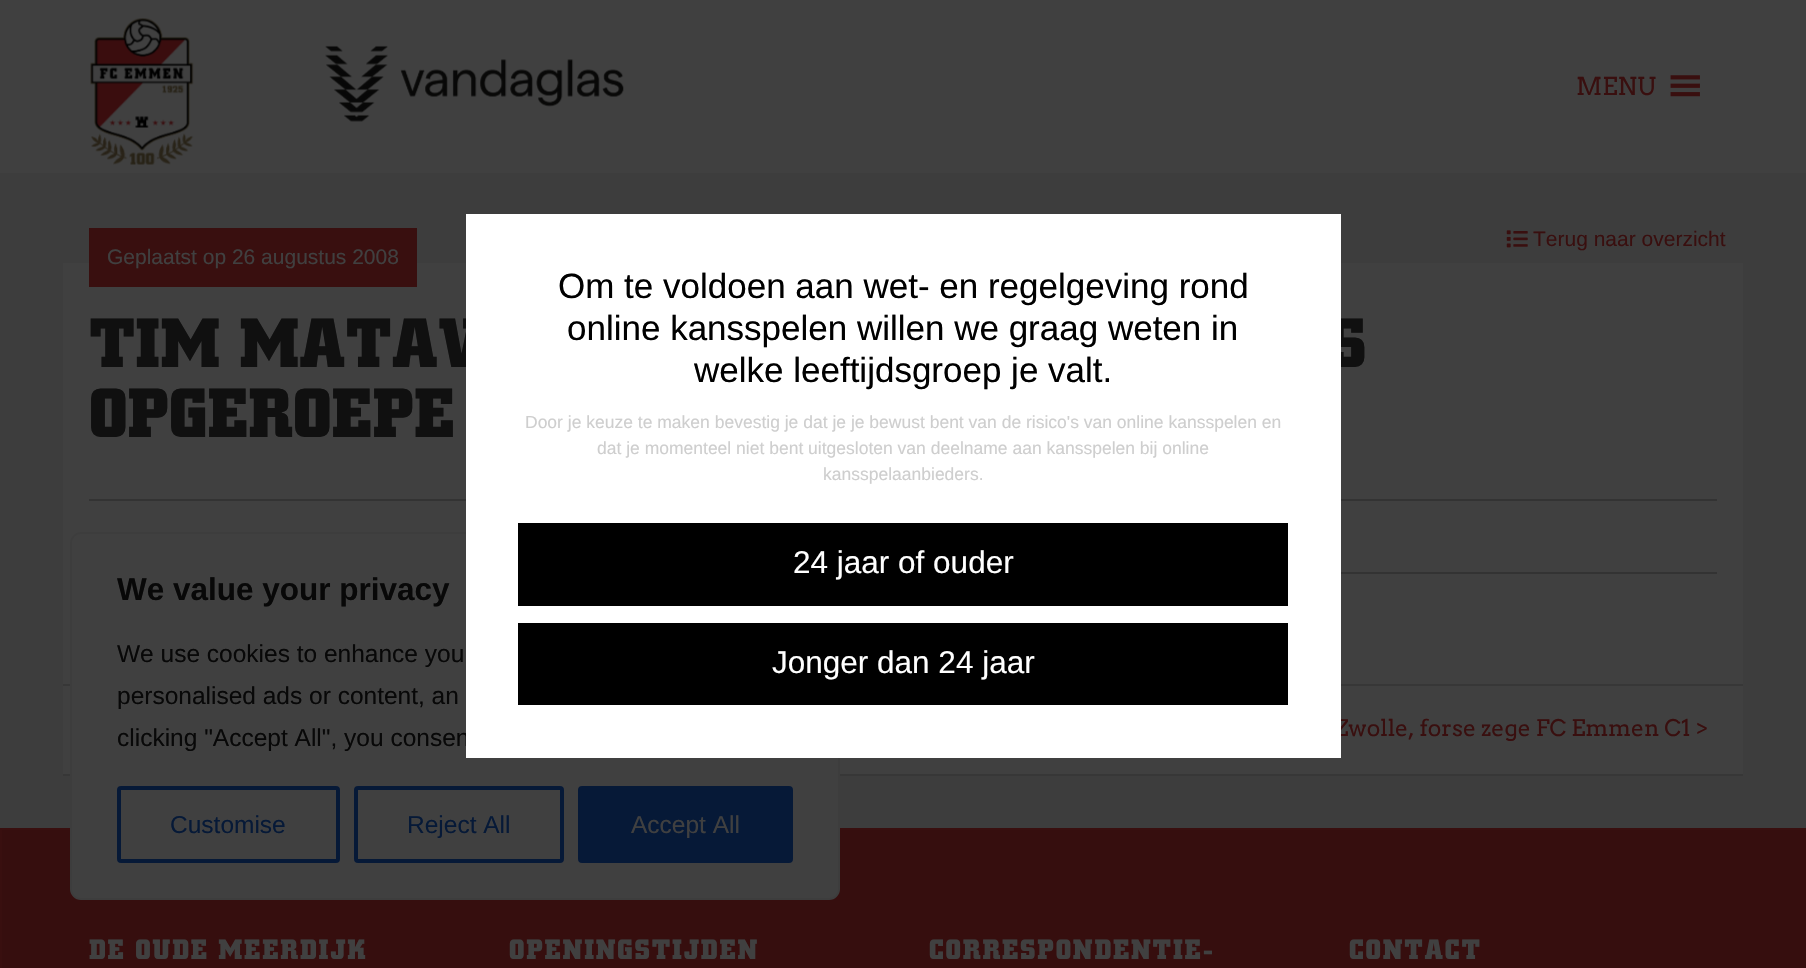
void draw(SkCanvas* canvas) {
	SkPaint fill;
	fill.setAntiAlias(true);
	auto makeFont = [&](const char* family, int weight, float size, bool italic = false) {
		SkFontStyle style(weight, SkFontStyle::kNormal_Width,
			italic ? SkFontStyle::kItalic_Slant : SkFontStyle::kUpright_Slant);
		SkFont result(fontMgr->matchFamilyStyle(family, style), size);
		result.setSubpixel(true);
		return result;
	};
	auto text = [&](const char* s, float x, float y, const SkFont& font) {
		canvas->drawString(s, x, y, font, fill);
	};
	auto spacedText = [&](const char* s, float x, float y, const SkFont& font, const SkPaint& ink, float letter, float word) {
		std::vector<SkGlyphID> glyphs(font.countText(s, strlen(s), SkTextEncoding::kUTF8));
		std::vector<float> xs(glyphs.size());
		font.textToGlyphs(s, strlen(s), SkTextEncoding::kUTF8, glyphs);
		font.getXPos(glyphs, xs, x);
		float extra = 0;
		for (size_t i = 0; i < glyphs.size(); i++) {
			xs[i] += extra;
			extra += letter + word * (glyphs[i] == font.unicharToGlyph(' '));
		}
		canvas->drawTextBlob(SkTextBlob::MakeFromPosHGlyphs(glyphs, xs, y, font), 0, 0, ink);
	};
	auto box = [&](float l, float t, float r, float b) {
		canvas->drawRect(SkRect::MakeLTRB(l, t, r, b), fill);
	};
	auto picture = [&](const char* path, float l, float t, float r, float b) {
		auto image = SkImages::DeferredFromEncodedData(SkData::MakeFromFileName(path));
		canvas->drawImageRect(image, SkRect::MakeLTRB(l, t, r, b), SkSamplingOptions());
	};
	canvas->clear(0xFF3D3D3D);
	fill.setColor(0xFF404040);
	box(0, 0, 1806, 173);
	picture("image0.png", 90, 18, 194, 165);
	picture("image1.png", 325, 45, 624, 122);
	picture("image2.png", 1670, 75, 1700, 97);
	box(63, 263, 1743, 684);
	fill.setColor(0xFF373737);
	box(63, 684, 1743, 686);
	picture("image3.png", 1506, 230, 1528, 248);
	fill.setColor(0xFF390F0F);
	box(89, 228, 417, 287);
	fill.setColor(0xFF333333);
	box(89, 499, 1717, 501);
	box(1341, 572, 1717, 574);
	fill.setColor(0xFF404040);
	box(63, 686, 1743, 774);
	fill.setColor(0xFF373737);
	box(63, 774, 1743, 776);
	fill.setColor(0xFF390F0F);
	box(0, 828, 1806, 968);
	fill.setColor(0xFF360E0E);
	canvas->drawPath(SkPathBuilder().moveTo(498, 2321).lineTo(2, 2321).lineTo(2, 830).lineTo(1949, 830).close().detach(), fill);
	fill.setColor(0xFF404040);
	canvas->drawRoundRect(SkRect::MakeLTRB(71, 533, 839, 899), 10, 10, fill);
	fill.setStyle(SkPaint::kStroke_Style);
	fill.setStrokeWidth(2);
	fill.setColor(0xFF3D3D3D);
	canvas->drawRoundRect(SkRect::MakeLTRB(71, 533, 839, 899), 10, 10, fill);
	fill.setStrokeWidth(4);
	fill.setColor(0xFF061937);
	canvas->drawRoundRect(SkRect::MakeLTRB(119, 788, 338, 861), 2, 2, fill);
	canvas->drawRoundRect(SkRect::MakeLTRB(356, 788, 562, 861), 2, 2, fill);
	fill.setStyle(SkPaint::kFill_Style);
	canvas->drawRoundRect(SkRect::MakeLTRB(580, 788, 791, 861), 2, 2, fill);
	fill.setStyle(SkPaint::kStroke_Style);
	canvas->drawRoundRect(SkRect::MakeLTRB(580, 788, 791, 861), 2, 2, fill);
	auto font1 = makeFont("Arvo", 400, 24.5f);
	fill.setStyle(SkPaint::kFill_Style);
	fill.setColor(0xFF390F0F);
	text("MENU", 1576, 95, font1);
	auto font2 = makeFont("Liberation Sans", 400, 21);
	text("Terug naar overzicht", 1533, 246, font2);
	fill.setColor(0xFF404040);
	text("Geplaatst op 26 augustus 2008", 107, 264, font2);
	auto font3 = makeFont("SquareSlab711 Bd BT", 700, 70);
	fill.setColor(0xFF101010);
	text("TIM MATAV", 89, 367, font3);
	text("S", 1328, 367, font3);
	text("OPGEROEPE", 89, 437, font3);
	auto font4 = makeFont("Arvo", 400, 22.75f);
	fill.setColor(0xFF390F0F);
	text("Zwolle, forse zege FC Emmen C1 >", 1335, 736, font4);
	auto font5 = makeFont("SquareSlab711 Bd BT", 700, 28);
	fill.setColor(0xFF404040);
	spacedText("DE OUDE MEERDIJK", 89, 959, font5, fill, 1.75f, 0);
	spacedText("OPENINGSTIJDEN", 509, 959, font5, fill, 1.75f, 0);
	spacedText("CORRESPONDENTIE-", 929, 959, font5, fill, 1.75f, 0);
	spacedText("CONTACT", 1349, 959, font5, fill, 1.75f, 0);
	auto font6 = makeFont("Liberation Sans", 700, 31.5f);
	fill.setColor(0xFF080808);
	text("We value your privacy", 117, 600, font6);
	auto font7 = makeFont("Liberation Sans", 400, 24.5f);
	text("We use cookies to enhance you", 117, 662, font7);
	text("personalised ads or content, an", 117, 704, font7);
	text("clicking \"Accept All\", you consen", 117, 746, font7);
	fill.setColor(0xFFFFFFFF);
	box(466, 214, 1341, 758);
	fill.setColor(0xFF000000);
	box(518, 623, 1288, 705);
	auto font8 = makeFont("Liberation Sans", 400, 31.5f);
	fill.setColor(0xFFFFFFFF);
	text("Jonger dan 24 jaar", 772, 673, font8);
	fill.setColor(0xFF000000);
	box(518, 523, 1288, 606);
	fill.setColor(0xFFFFFFFF);
	text("24 jaar of ouder", 793, 573, font8);
	auto font9 = makeFont("Liberation Sans", 400, 17.5f);
	fill.setColor(0xFFCECECE);
	text("kansspelaanbieders.", 823, 480, font9);
	text("dat je momenteel niet bent uitgesloten van deelname aan kansspelen bij online", 597, 454, font9);
	text("Door je keuze te maken bevestig je dat je je bewust bent van de risico's van online kansspelen en", 525, 428, font9);
	auto font10 = makeFont("Liberation Sans", 400, 35);
	fill.setColor(0xFF000000);
	text("welke leeftijdsgroep je valt.", 694, 382, font10);
	text("online kansspelen willen we graag weten in", 567, 340, font10);
	text("Om te voldoen aan wet- en regelgeving rond", 558, 298, font10);
	fill.setColor(0xFF061937);
	text("Customise", 170, 833, font7);
	text("Reject All", 407, 833, font7);
	fill.setColor(0xFF404040);
	text("Accept All", 631, 833, font7);
}
